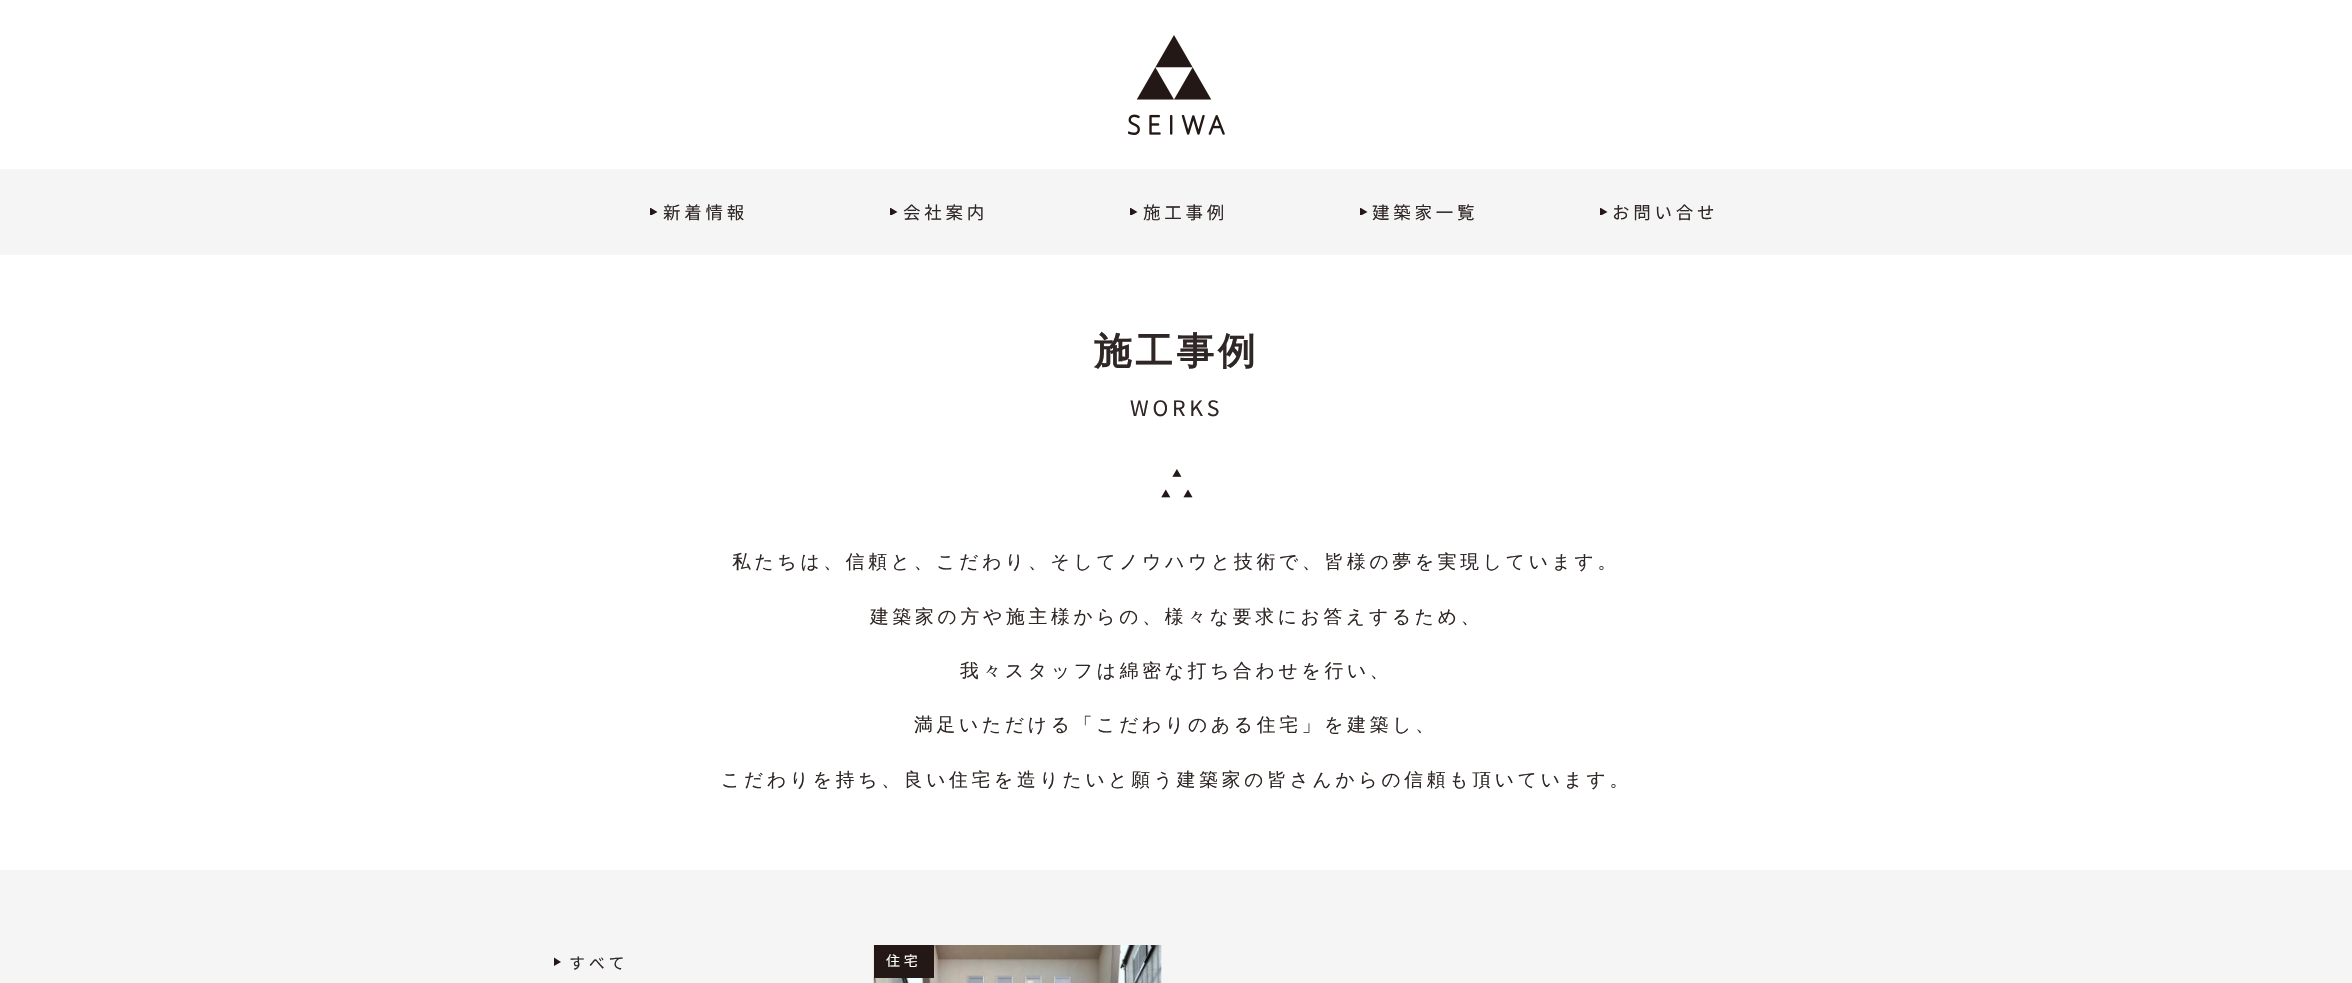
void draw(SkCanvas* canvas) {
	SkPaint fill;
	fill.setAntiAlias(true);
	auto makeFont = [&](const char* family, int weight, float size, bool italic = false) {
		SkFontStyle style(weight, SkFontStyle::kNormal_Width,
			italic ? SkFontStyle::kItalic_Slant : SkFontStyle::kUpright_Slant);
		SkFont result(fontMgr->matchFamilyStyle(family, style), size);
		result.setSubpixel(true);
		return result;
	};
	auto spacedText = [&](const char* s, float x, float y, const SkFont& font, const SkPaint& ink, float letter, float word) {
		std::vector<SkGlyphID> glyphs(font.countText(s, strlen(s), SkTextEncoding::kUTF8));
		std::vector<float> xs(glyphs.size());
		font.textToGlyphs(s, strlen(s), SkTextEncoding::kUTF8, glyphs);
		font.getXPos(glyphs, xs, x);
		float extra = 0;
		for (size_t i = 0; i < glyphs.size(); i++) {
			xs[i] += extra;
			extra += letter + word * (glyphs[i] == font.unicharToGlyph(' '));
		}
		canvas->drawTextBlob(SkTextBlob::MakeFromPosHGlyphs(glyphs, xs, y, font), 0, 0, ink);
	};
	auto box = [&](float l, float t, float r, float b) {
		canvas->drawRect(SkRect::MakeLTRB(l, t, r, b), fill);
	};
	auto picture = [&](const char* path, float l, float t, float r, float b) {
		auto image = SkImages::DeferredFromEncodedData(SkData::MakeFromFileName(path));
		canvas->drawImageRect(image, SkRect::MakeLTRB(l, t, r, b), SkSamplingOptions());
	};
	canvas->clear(0xFFFFFFFF);
	picture("image0.png", 1128, 35, 1225, 135);
	fill.setColor(0xFFF5F5F5);
	box(0, 169, 2352, 255);
	canvas->save();
	canvas->clipRect(SkRect::MakeLTRB(650, 208, 658, 215));
	fill.setColor(0xFF231815);
	canvas->drawPath(SkPathBuilder().moveTo(650, 207.5f).lineTo(657.5f, 212).lineTo(650, 216).close().detach(), fill);
	canvas->restore();
	canvas->save();
	canvas->clipRect(SkRect::MakeLTRB(890, 208, 898, 215));
	canvas->drawPath(SkPathBuilder().moveTo(890, 207.5f).lineTo(897.5f, 212).lineTo(890, 216).close().detach(), fill);
	canvas->restore();
	canvas->save();
	canvas->clipRect(SkRect::MakeLTRB(1130, 208, 1138, 215));
	canvas->drawPath(SkPathBuilder().moveTo(1130, 207.5f).lineTo(1137.5f, 212).lineTo(1130, 216).close().detach(), fill);
	canvas->restore();
	canvas->save();
	canvas->clipRect(SkRect::MakeLTRB(1360, 208, 1368, 215));
	canvas->drawPath(SkPathBuilder().moveTo(1360, 207.5f).lineTo(1367.5f, 212).lineTo(1360, 216).close().detach(), fill);
	canvas->restore();
	canvas->save();
	canvas->clipRect(SkRect::MakeLTRB(1600, 208, 1608, 215));
	canvas->drawPath(SkPathBuilder().moveTo(1600, 207.5f).lineTo(1607.5f, 212).lineTo(1600, 216).close().detach(), fill);
	canvas->restore();
	picture("image1.png", 1161, 469, 1193, 498);
	fill.setColor(0xFFF5F5F5);
	box(0, 870, 2352, 983);
	fill.setColor(0xFF231815);
	canvas->drawPath(SkPathBuilder().moveTo(554, 957.5f).lineTo(561, 962).lineTo(554, 966).close().detach(), fill);
	picture("image2.png", 873, 945, 1162, 983);
	box(874, 945, 934, 978);
	auto font1 = makeFont("Noto Sans JP", 400, 17.5f);
	fill.setColor(0xFF2F2725);
	spacedText("新着情報", 663, 219, font1, fill, 3.75f, 0);
	spacedText("会社案内", 903, 219, font1, fill, 3.75f, 0);
	spacedText("施工事例", 1143, 219, font1, fill, 3.75f, 0);
	spacedText("建築家一覧", 1372, 219, font1, fill, 3.75f, 0);
	spacedText("お問い合せ", 1612, 219, font1, fill, 3.75f, 0);
	auto font2 = makeFont("WenQuanYi Zen Hei", 700, 37.5f);
	spacedText("施工事例", 1094, 364, font2, fill, 3.75f, 0);
	auto font3 = makeFont("Noto Sans JP", 400, 21.25f);
	spacedText("WORKS", 1130, 416, font3, fill, 3.75f, 0);
	auto font4 = makeFont("WenQuanYi Zen Hei", 500, 18.75f);
	spacedText("私たちは、信頼と、こだわり、そしてノウハウと技術で、皆様の夢を実現しています。", 732, 568, font4, fill, 3.75f, 0);
	spacedText("建築家の方や施主様からの、様々な要求にお答えするため、", 870, 623, font4, fill, 3.75f, 0);
	spacedText("我々スタッフは綿密な打ち合わせを行い、", 960, 677, font4, fill, 3.75f, 0);
	spacedText("満足いただける「こだわりのある住宅」を建築し、", 914, 731, font4, fill, 3.75f, 0);
	spacedText("こだわりを持ち、良い住宅を造りたいと願う建築家の皆さんからの信頼も頂いています。", 721, 786, font4, fill, 3.75f, 0);
	auto font5 = makeFont("Noto Sans JP", 400, 16);
	spacedText("すべて", 569, 969, font5, fill, 3.75f, 0);
	auto font6 = makeFont("Noto Sans JP", 400, 14);
	fill.setColor(0xFFFFFFFF);
	spacedText("住宅", 886, 966, font6, fill, 3.75f, 0);
}
